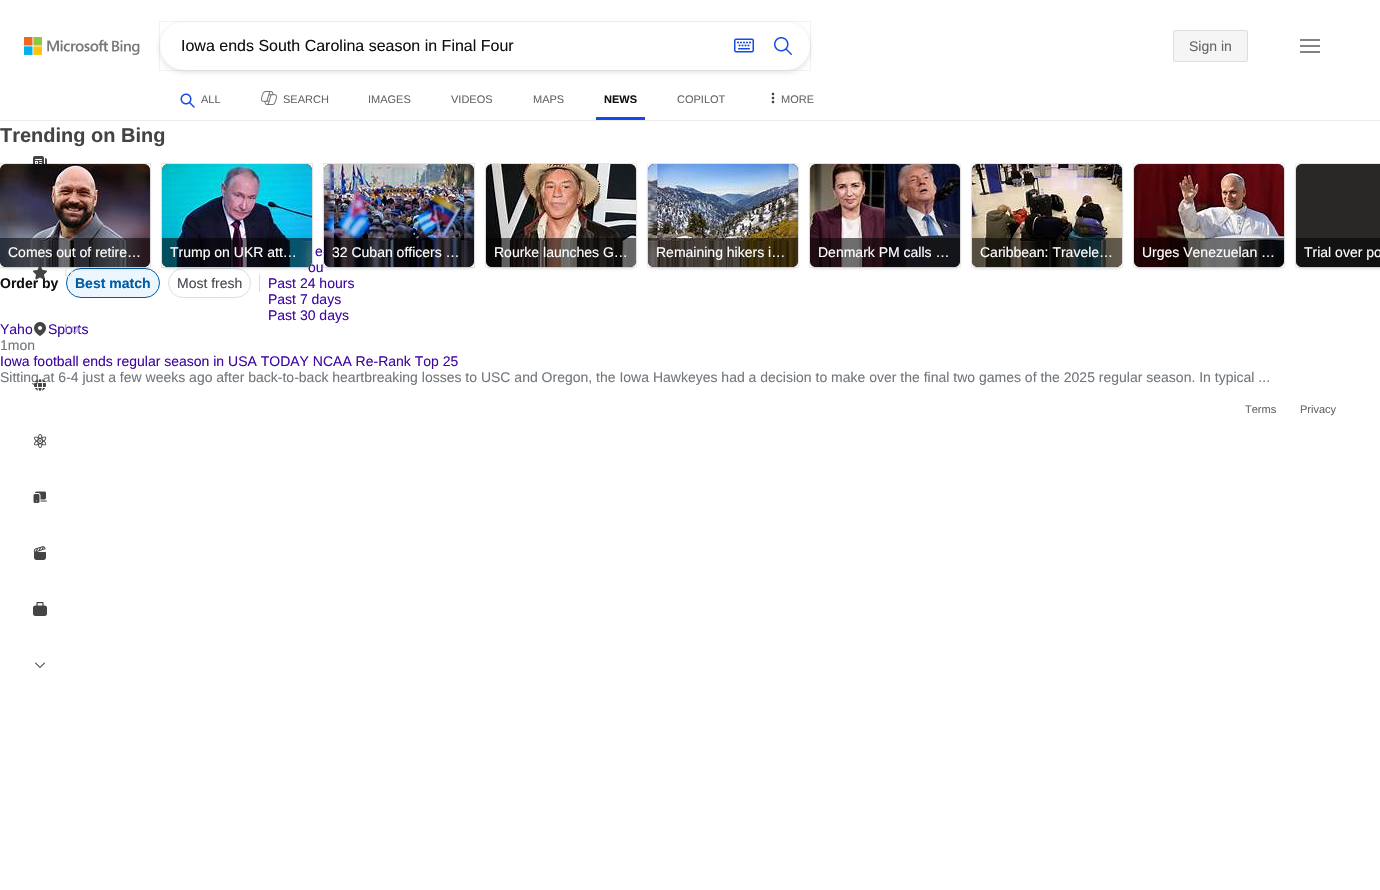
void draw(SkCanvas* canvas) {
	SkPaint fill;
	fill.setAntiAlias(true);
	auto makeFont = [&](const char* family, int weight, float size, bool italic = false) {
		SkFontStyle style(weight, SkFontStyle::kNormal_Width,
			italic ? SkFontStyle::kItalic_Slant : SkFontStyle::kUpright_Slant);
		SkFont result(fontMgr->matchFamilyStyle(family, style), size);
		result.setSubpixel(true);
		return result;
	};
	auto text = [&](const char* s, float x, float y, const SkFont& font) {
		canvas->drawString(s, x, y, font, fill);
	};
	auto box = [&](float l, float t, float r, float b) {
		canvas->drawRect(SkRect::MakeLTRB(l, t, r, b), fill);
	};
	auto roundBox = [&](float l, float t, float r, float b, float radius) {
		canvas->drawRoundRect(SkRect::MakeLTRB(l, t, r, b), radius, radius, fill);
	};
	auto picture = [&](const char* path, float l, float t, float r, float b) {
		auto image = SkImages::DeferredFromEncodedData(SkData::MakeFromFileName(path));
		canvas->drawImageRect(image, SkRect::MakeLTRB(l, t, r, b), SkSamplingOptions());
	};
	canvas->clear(0xFFFFFFFF);
	fill.setColor(0xFFECECEC);
	box(0, 120, 1380, 121);
	picture("image0.png", 24, 37, 140, 55);
	fill.setColor(0x17000000);
	fill.setMaskFilter(SkMaskFilter::MakeBlur(kNormal_SkBlurStyle, 2));
	canvas->drawRoundRect(SkRect::MakeLTRB(159, 23, 811, 73), 25, 25, fill);
	fill.setMaskFilter(nullptr);
	fill.setStyle(SkPaint::kStroke_Style);
	fill.setStrokeWidth(1);
	fill.setColor(0x0D000000);
	canvas->drawRect(SkRect::MakeLTRB(159.5f, 21.5f, 810.5f, 70.5f), fill);
	fill.setStyle(SkPaint::kFill_Style);
	fill.setColor(0xFFFFFFFF);
	roundBox(160, 22, 810, 70, 24);
	picture("image1.png", 734, 38, 754, 53);
	picture("image2.png", 774, 37, 792, 55);
	fill.setColor(0xFFF5F5F5);
	canvas->drawRoundRect(SkRect::MakeLTRB(1173.5f, 30.5f, 1247.5f, 61.5f), 1.5f, 1.5f, fill);
	fill.setStyle(SkPaint::kStroke_Style);
	fill.setColor(0xFFDDDDDD);
	canvas->drawRoundRect(SkRect::MakeLTRB(1173.5f, 30.5f, 1247.5f, 61.5f), 1.5f, 1.5f, fill);
	picture("image3.png", 1300, 39, 1320, 53);
	picture("image4.png", 180, 93, 195, 108);
	picture("image5.png", 261, 91, 277, 105);
	fill.setStyle(SkPaint::kFill_Style);
	fill.setColor(0xFF174AE4);
	box(596, 117, 645, 120);
	picture("image6.png", 771, 92, 775, 104);
	picture("image23.png", 323, 252, 324, 253);
	fill.setStyle(SkPaint::kStroke_Style);
	fill.setColor(0x0D000000);
	canvas->drawRect(SkRect::MakeLTRB(323.5f, 163.5f, 474.5f, 267.5f), fill);
	fill.setStyle(SkPaint::kFill_Style);
	fill.setColor(0x1A000000);
	fill.setMaskFilter(SkMaskFilter::MakeBlur(kNormal_SkBlurStyle, 1.5f));
	canvas->drawRoundRect(SkRect::MakeLTRB(324, 166, 474, 269), 6, 6, fill);
	fill.setMaskFilter(nullptr);
	fill.setStyle(SkPaint::kStroke_Style);
	fill.setColor(0x0D000000);
	canvas->drawRect(SkRect::MakeLTRB(323.5f, 163.5f, 474.5f, 267.5f), fill);
	fill.setStyle(SkPaint::kFill_Style);
	fill.setColor(0xFF292827);
	roundBox(324, 164, 474, 267, 6);
	picture("image11.png", 324, 164, 474, 242);
	picture("image12.png", 324, 242, 474, 267);
	fill.setColor(0x8C000000);
	canvas->drawPath(SkPathBuilder().moveTo(324, 238).lineTo(474, 238).lineTo(474, 261).cubicTo(474, 264.5f, 471.5f, 267, 468, 267).lineTo(330, 267).cubicTo(326.5f, 267, 324, 264.5f, 324, 261).close().detach(), fill);
	fill.setStyle(SkPaint::kStroke_Style);
	fill.setColor(0xFFF2F2F2);
	canvas->drawRoundRect(SkRect::MakeLTRB(485.5f, 163.5f, 636.5f, 267.5f), 6.5f, 6.5f, fill);
	fill.setStyle(SkPaint::kFill_Style);
	fill.setColor(0x1A000000);
	fill.setMaskFilter(SkMaskFilter::MakeBlur(kNormal_SkBlurStyle, 1.5f));
	canvas->drawRoundRect(SkRect::MakeLTRB(486, 166, 636, 269), 6, 6, fill);
	fill.setMaskFilter(nullptr);
	fill.setStyle(SkPaint::kStroke_Style);
	fill.setColor(0x0D000000);
	canvas->drawRect(SkRect::MakeLTRB(485.5f, 163.5f, 636.5f, 267.5f), fill);
	fill.setStyle(SkPaint::kFill_Style);
	fill.setColor(0xFF292827);
	roundBox(486, 164, 636, 267, 6);
	picture("image13.png", 486, 164, 636, 242);
	picture("image14.png", 486, 242, 636, 267);
	fill.setColor(0x8C000000);
	canvas->drawPath(SkPathBuilder().moveTo(486, 238).lineTo(636, 238).lineTo(636, 261).cubicTo(636, 264.5f, 633.5f, 267, 630, 267).lineTo(492, 267).cubicTo(488.5f, 267, 486, 264.5f, 486, 261).close().detach(), fill);
	fill.setStyle(SkPaint::kStroke_Style);
	fill.setColor(0xFFF2F2F2);
	canvas->drawRoundRect(SkRect::MakeLTRB(647.5f, 163.5f, 798.5f, 267.5f), 6.5f, 6.5f, fill);
	fill.setStyle(SkPaint::kFill_Style);
	fill.setColor(0x1A000000);
	fill.setMaskFilter(SkMaskFilter::MakeBlur(kNormal_SkBlurStyle, 1.5f));
	canvas->drawRoundRect(SkRect::MakeLTRB(648, 166, 798, 269), 6, 6, fill);
	fill.setMaskFilter(nullptr);
	fill.setStyle(SkPaint::kStroke_Style);
	fill.setColor(0x0D000000);
	canvas->drawRect(SkRect::MakeLTRB(647.5f, 163.5f, 798.5f, 267.5f), fill);
	fill.setStyle(SkPaint::kFill_Style);
	fill.setColor(0xFF292827);
	roundBox(648, 164, 798, 267, 6);
	picture("image15.png", 648, 164, 798, 242);
	picture("image16.png", 648, 242, 798, 267);
	fill.setColor(0x8C000000);
	canvas->drawPath(SkPathBuilder().moveTo(648, 238).lineTo(798, 238).lineTo(798, 261).cubicTo(798, 264.5f, 795.5f, 267, 792, 267).lineTo(654, 267).cubicTo(650.5f, 267, 648, 264.5f, 648, 261).close().detach(), fill);
	fill.setStyle(SkPaint::kStroke_Style);
	fill.setColor(0xFFF2F2F2);
	canvas->drawRoundRect(SkRect::MakeLTRB(809.5f, 163.5f, 960.5f, 267.5f), 6.5f, 6.5f, fill);
	fill.setStyle(SkPaint::kFill_Style);
	fill.setColor(0x1A000000);
	fill.setMaskFilter(SkMaskFilter::MakeBlur(kNormal_SkBlurStyle, 1.5f));
	canvas->drawRoundRect(SkRect::MakeLTRB(810, 166, 960, 269), 6, 6, fill);
	fill.setMaskFilter(nullptr);
	fill.setStyle(SkPaint::kStroke_Style);
	fill.setColor(0x0D000000);
	canvas->drawRect(SkRect::MakeLTRB(809.5f, 163.5f, 960.5f, 267.5f), fill);
	fill.setStyle(SkPaint::kFill_Style);
	fill.setColor(0xFF292827);
	roundBox(810, 164, 960, 267, 6);
	picture("image17.png", 810, 164, 960, 240);
	picture("image18.png", 810, 240, 960, 267);
	fill.setColor(0x8C000000);
	canvas->drawPath(SkPathBuilder().moveTo(810, 238).lineTo(960, 238).lineTo(960, 261).cubicTo(960, 264.5f, 957.5f, 267, 954, 267).lineTo(816, 267).cubicTo(812.5f, 267, 810, 264.5f, 810, 261).close().detach(), fill);
	fill.setStyle(SkPaint::kStroke_Style);
	fill.setColor(0xFFF2F2F2);
	canvas->drawRoundRect(SkRect::MakeLTRB(971.5f, 163.5f, 1122.5f, 267.5f), 6.5f, 6.5f, fill);
	fill.setStyle(SkPaint::kFill_Style);
	fill.setColor(0x1A000000);
	fill.setMaskFilter(SkMaskFilter::MakeBlur(kNormal_SkBlurStyle, 1.5f));
	canvas->drawRoundRect(SkRect::MakeLTRB(972, 166, 1122, 269), 6, 6, fill);
	fill.setMaskFilter(nullptr);
	fill.setStyle(SkPaint::kStroke_Style);
	fill.setColor(0x0D000000);
	canvas->drawRect(SkRect::MakeLTRB(971.5f, 163.5f, 1122.5f, 267.5f), fill);
	fill.setStyle(SkPaint::kFill_Style);
	fill.setColor(0xFF292827);
	roundBox(972, 164, 1122, 267, 6);
	picture("image19.png", 972, 164, 1122, 242);
	picture("image20.png", 972, 242, 1122, 267);
	fill.setColor(0x8C000000);
	canvas->drawPath(SkPathBuilder().moveTo(972, 238).lineTo(1122, 238).lineTo(1122, 261).cubicTo(1122, 264.5f, 1119.5f, 267, 1116, 267).lineTo(978, 267).cubicTo(974.5f, 267, 972, 264.5f, 972, 261).close().detach(), fill);
	fill.setStyle(SkPaint::kStroke_Style);
	fill.setColor(0xFFF2F2F2);
	canvas->drawRoundRect(SkRect::MakeLTRB(1133.5f, 163.5f, 1284.5f, 267.5f), 6.5f, 6.5f, fill);
	fill.setStyle(SkPaint::kFill_Style);
	fill.setColor(0x1A000000);
	fill.setMaskFilter(SkMaskFilter::MakeBlur(kNormal_SkBlurStyle, 1.5f));
	canvas->drawRoundRect(SkRect::MakeLTRB(1134, 166, 1284, 269), 6, 6, fill);
	fill.setMaskFilter(nullptr);
	fill.setStyle(SkPaint::kStroke_Style);
	fill.setColor(0x0D000000);
	canvas->drawRect(SkRect::MakeLTRB(1133.5f, 163.5f, 1284.5f, 267.5f), fill);
	fill.setStyle(SkPaint::kFill_Style);
	fill.setColor(0xFF292827);
	roundBox(1134, 164, 1284, 267, 6);
	picture("image21.png", 1134, 164, 1284, 242);
	picture("image22.png", 1134, 242, 1284, 267);
	fill.setColor(0x8C000000);
	canvas->drawPath(SkPathBuilder().moveTo(1134, 238).lineTo(1284, 238).lineTo(1284, 261).cubicTo(1284, 264.5f, 1281.5f, 267, 1278, 267).lineTo(1140, 267).cubicTo(1136.5f, 267, 1134, 264.5f, 1134, 261).close().detach(), fill);
	fill.setStyle(SkPaint::kStroke_Style);
	fill.setColor(0xFFF2F2F2);
	canvas->drawRoundRect(SkRect::MakeLTRB(1295.5f, 163.5f, 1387.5f, 267.5f), 6.5f, 6.5f, fill);
	fill.setStyle(SkPaint::kFill_Style);
	fill.setColor(0x1A000000);
	fill.setMaskFilter(SkMaskFilter::MakeBlur(kNormal_SkBlurStyle, 1.5f));
	canvas->drawRoundRect(SkRect::MakeLTRB(1296, 166, 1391, 269), 6, 6, fill);
	fill.setMaskFilter(nullptr);
	fill.setStyle(SkPaint::kStroke_Style);
	fill.setColor(0x0D000000);
	canvas->drawRect(SkRect::MakeLTRB(1295.5f, 163.5f, 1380.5f, 267.5f), fill);
	fill.setStyle(SkPaint::kFill_Style);
	fill.setColor(0xFF292827);
	canvas->drawPath(SkPathBuilder().moveTo(1302, 164).lineTo(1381, 164).lineTo(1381, 267).lineTo(1302, 267).cubicTo(1298.5f, 267, 1296, 264.5f, 1296, 261).lineTo(1296, 170).cubicTo(1296, 166.5f, 1298.5f, 164, 1302, 164).close().detach(), fill);
	fill.setColor(0x8C000000);
	canvas->drawPath(SkPathBuilder().moveTo(1296, 238).lineTo(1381, 238).lineTo(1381, 267).lineTo(1302, 267).cubicTo(1298.5f, 267, 1296, 264.5f, 1296, 261).close().detach(), fill);
	fill.setColor(0xFFEBF6FF);
	canvas->drawRoundRect(SkRect::MakeLTRB(66.5f, 268.5f, 159.5f, 297.5f), 14.5f, 14.5f, fill);
	fill.setStyle(SkPaint::kStroke_Style);
	fill.setColor(0xFF005BA1);
	canvas->drawRoundRect(SkRect::MakeLTRB(66.5f, 268.5f, 159.5f, 297.5f), 14.5f, 14.5f, fill);
	fill.setColor(0xFFDADEE5);
	canvas->drawRoundRect(SkRect::MakeLTRB(168.5f, 268.5f, 250.5f, 297.5f), 14.5f, 14.5f, fill);
	fill.setStyle(SkPaint::kFill_Style);
	fill.setColor(0xFFDDDDDD);
	box(259, 274, 260, 292);
	picture("image24.png", 33, 156, 47, 164);
	picture("image26.png", 34, 322, 46, 336);
	picture("image28.png", 34, 434, 47, 448);
	picture("image29.png", 33, 491, 47, 503);
	picture("image30.png", 33, 546, 46, 560);
	picture("image31.png", 33, 602, 47, 616);
	picture("image32.png", 35, 662, 45, 668);
	auto font1 = makeFont("Liberation Sans", 400, 16);
	fill.setColor(0xFF111111);
	text("Iowa ends South Carolina season in Final Four", 181, 51, font1);
	auto font2 = makeFont("Liberation Sans", 400, 14);
	fill.setColor(0xFF666666);
	text("Sign in", 1189, 51, font2);
	auto font3 = makeFont("Liberation Sans", 400, 11);
	text("ALL", 201, 103, font3);
	text("SEARCH", 283, 103, font3);
	text("IMAGES", 368, 103, font3);
	text("VIDEOS", 451, 103, font3);
	text("MAPS", 533, 103, font3);
	auto font4 = makeFont("Liberation Sans", 700, 11);
	fill.setColor(0xFF111111);
	text("NEWS", 604, 103, font4);
	fill.setColor(0xFF666666);
	text("COPILOT", 677, 103, font3);
	text("MORE", 781, 103, font3);
	auto font5 = makeFont("Liberation Sans", 700, 20);
	fill.setColor(0xFF444444);
	text("Trending on Bing", 0, 142, font5);
	fill.setColor(0xFFFFFFFF);
	text("32 Cuban officers …", 332, 257, font2);
	text("Rourke launches G…", 494, 257, font2);
	text("Remaining hikers i…", 656, 257, font2);
	text("Denmark PM calls …", 818, 257, font2);
	text("Caribbean: Travele…", 980, 257, font2);
	text("Urges Venezuelan …", 1142, 257, font2);
	text("Trial over po", 1304, 257, font2);
	auto font6 = makeFont("Liberation Sans", 700, 14);
	fill.setColor(0xFF111111);
	text("Order by", 0, 288, font6);
	fill.setColor(0xFF005BA1);
	text("Best match", 75, 288, font6);
	fill.setColor(0xFF474B50);
	text("Most fresh", 177, 288, font2);
	fill.setColor(0xFF4007A2);
	text("e", 315, 256, font2);
	text("ou", 308, 272, font2);
	fill.setStyle(SkPaint::kStroke_Style);
	fill.setColor(0x0D000000);
	canvas->drawRect(SkRect::MakeLTRB(161.5f, 163.5f, 312.5f, 267.5f), fill);
	fill.setStyle(SkPaint::kFill_Style);
	fill.setColor(0x1A000000);
	fill.setMaskFilter(SkMaskFilter::MakeBlur(kNormal_SkBlurStyle, 1.5f));
	canvas->drawRoundRect(SkRect::MakeLTRB(162, 166, 312, 269), 6, 6, fill);
	fill.setMaskFilter(nullptr);
	fill.setStyle(SkPaint::kStroke_Style);
	fill.setColor(0x0D000000);
	canvas->drawRect(SkRect::MakeLTRB(161.5f, 163.5f, 312.5f, 267.5f), fill);
	fill.setStyle(SkPaint::kFill_Style);
	fill.setColor(0xFF292827);
	roundBox(162, 164, 312, 267, 6);
	picture("image9.png", 162, 164, 312, 242);
	picture("image10.png", 162, 242, 312, 267);
	fill.setColor(0x8C000000);
	canvas->drawPath(SkPathBuilder().moveTo(162, 238).lineTo(312, 238).lineTo(312, 261).cubicTo(312, 264.5f, 309.5f, 267, 306, 267).lineTo(168, 267).cubicTo(164.5f, 267, 162, 264.5f, 162, 261).close().detach(), fill);
	fill.setColor(0xFFFFFFFF);
	text("Trump on UKR att…", 170, 257, font2);
	fill.setColor(0xFF4007A2);
	text("Past 24 hours", 268, 288, font2);
	text("Past 7 days", 268, 304, font2);
	text("Past 30 days", 268, 320, font2);
	text("Yaho", 0, 334, font2);
	text("Sports", 48, 334, font2);
	fill.setColor(0xFF71777D);
	text("1mon", 0, 350, font2);
	fill.setColor(0xFF4007A2);
	text("Iowa football ends regular season in USA TODAY NCAA Re-Rank Top 25", 0, 366, font2);
	fill.setColor(0xFF71777D);
	text("Sitting at 6-4 just a few weeks ago after back-to-back heartbreaking losses to USC and Oregon, the Iowa Hawkeyes had a decision to make over the final two games of the 2025 regular season. In typical ...", 0, 382, font2);
	picture("image25.png", 33, 267, 47, 280);
	fill.setStyle(SkPaint::kStroke_Style);
	fill.setColor(0x0D000000);
	canvas->drawRect(SkRect::MakeLTRB(-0.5f, 163.5f, 150.5f, 267.5f), fill);
	fill.setStyle(SkPaint::kFill_Style);
	fill.setColor(0x1A000000);
	fill.setMaskFilter(SkMaskFilter::MakeBlur(kNormal_SkBlurStyle, 1.5f));
	canvas->drawRoundRect(SkRect::MakeLTRB(0, 166, 150, 269), 6, 6, fill);
	fill.setMaskFilter(nullptr);
	fill.setStyle(SkPaint::kStroke_Style);
	fill.setColor(0x0D000000);
	canvas->drawRect(SkRect::MakeLTRB(-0.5f, 163.5f, 150.5f, 267.5f), fill);
	fill.setStyle(SkPaint::kFill_Style);
	fill.setColor(0xFF292827);
	roundBox(0, 164, 150, 267, 6);
	picture("image7.png", 0, 164, 150, 242);
	picture("image8.png", 0, 242, 150, 267);
	fill.setColor(0x8C000000);
	canvas->drawPath(SkPathBuilder().moveTo(0, 238).lineTo(150, 238).lineTo(150, 261).cubicTo(150, 264.5f, 147.5f, 267, 144, 267).lineTo(6, 267).cubicTo(2.5f, 267, 0, 264.5f, 0, 261).close().detach(), fill);
	fill.setColor(0xFFFFFFFF);
	text("Comes out of retire…", 8, 257, font2);
	auto font7 = makeFont("Liberation Sans", 400, 13);
	fill.setColor(0xFFDCEAF6);
	text("U", 64, 277, font7);
	canvas->save();
	canvas->clipRect(SkRect::MakeLTRB(0, 121, 80, 803));
	fill.setColor(0xFFBFABE0);
	text("Loc", 64, 333, font7);
	canvas->restore();
	picture("image27.png", 34, 379, 46, 391);
	fill.setColor(0xFF666666);
	text("Terms", 1245, 413, font3);
	text("Privacy", 1300, 413, font3);
}
